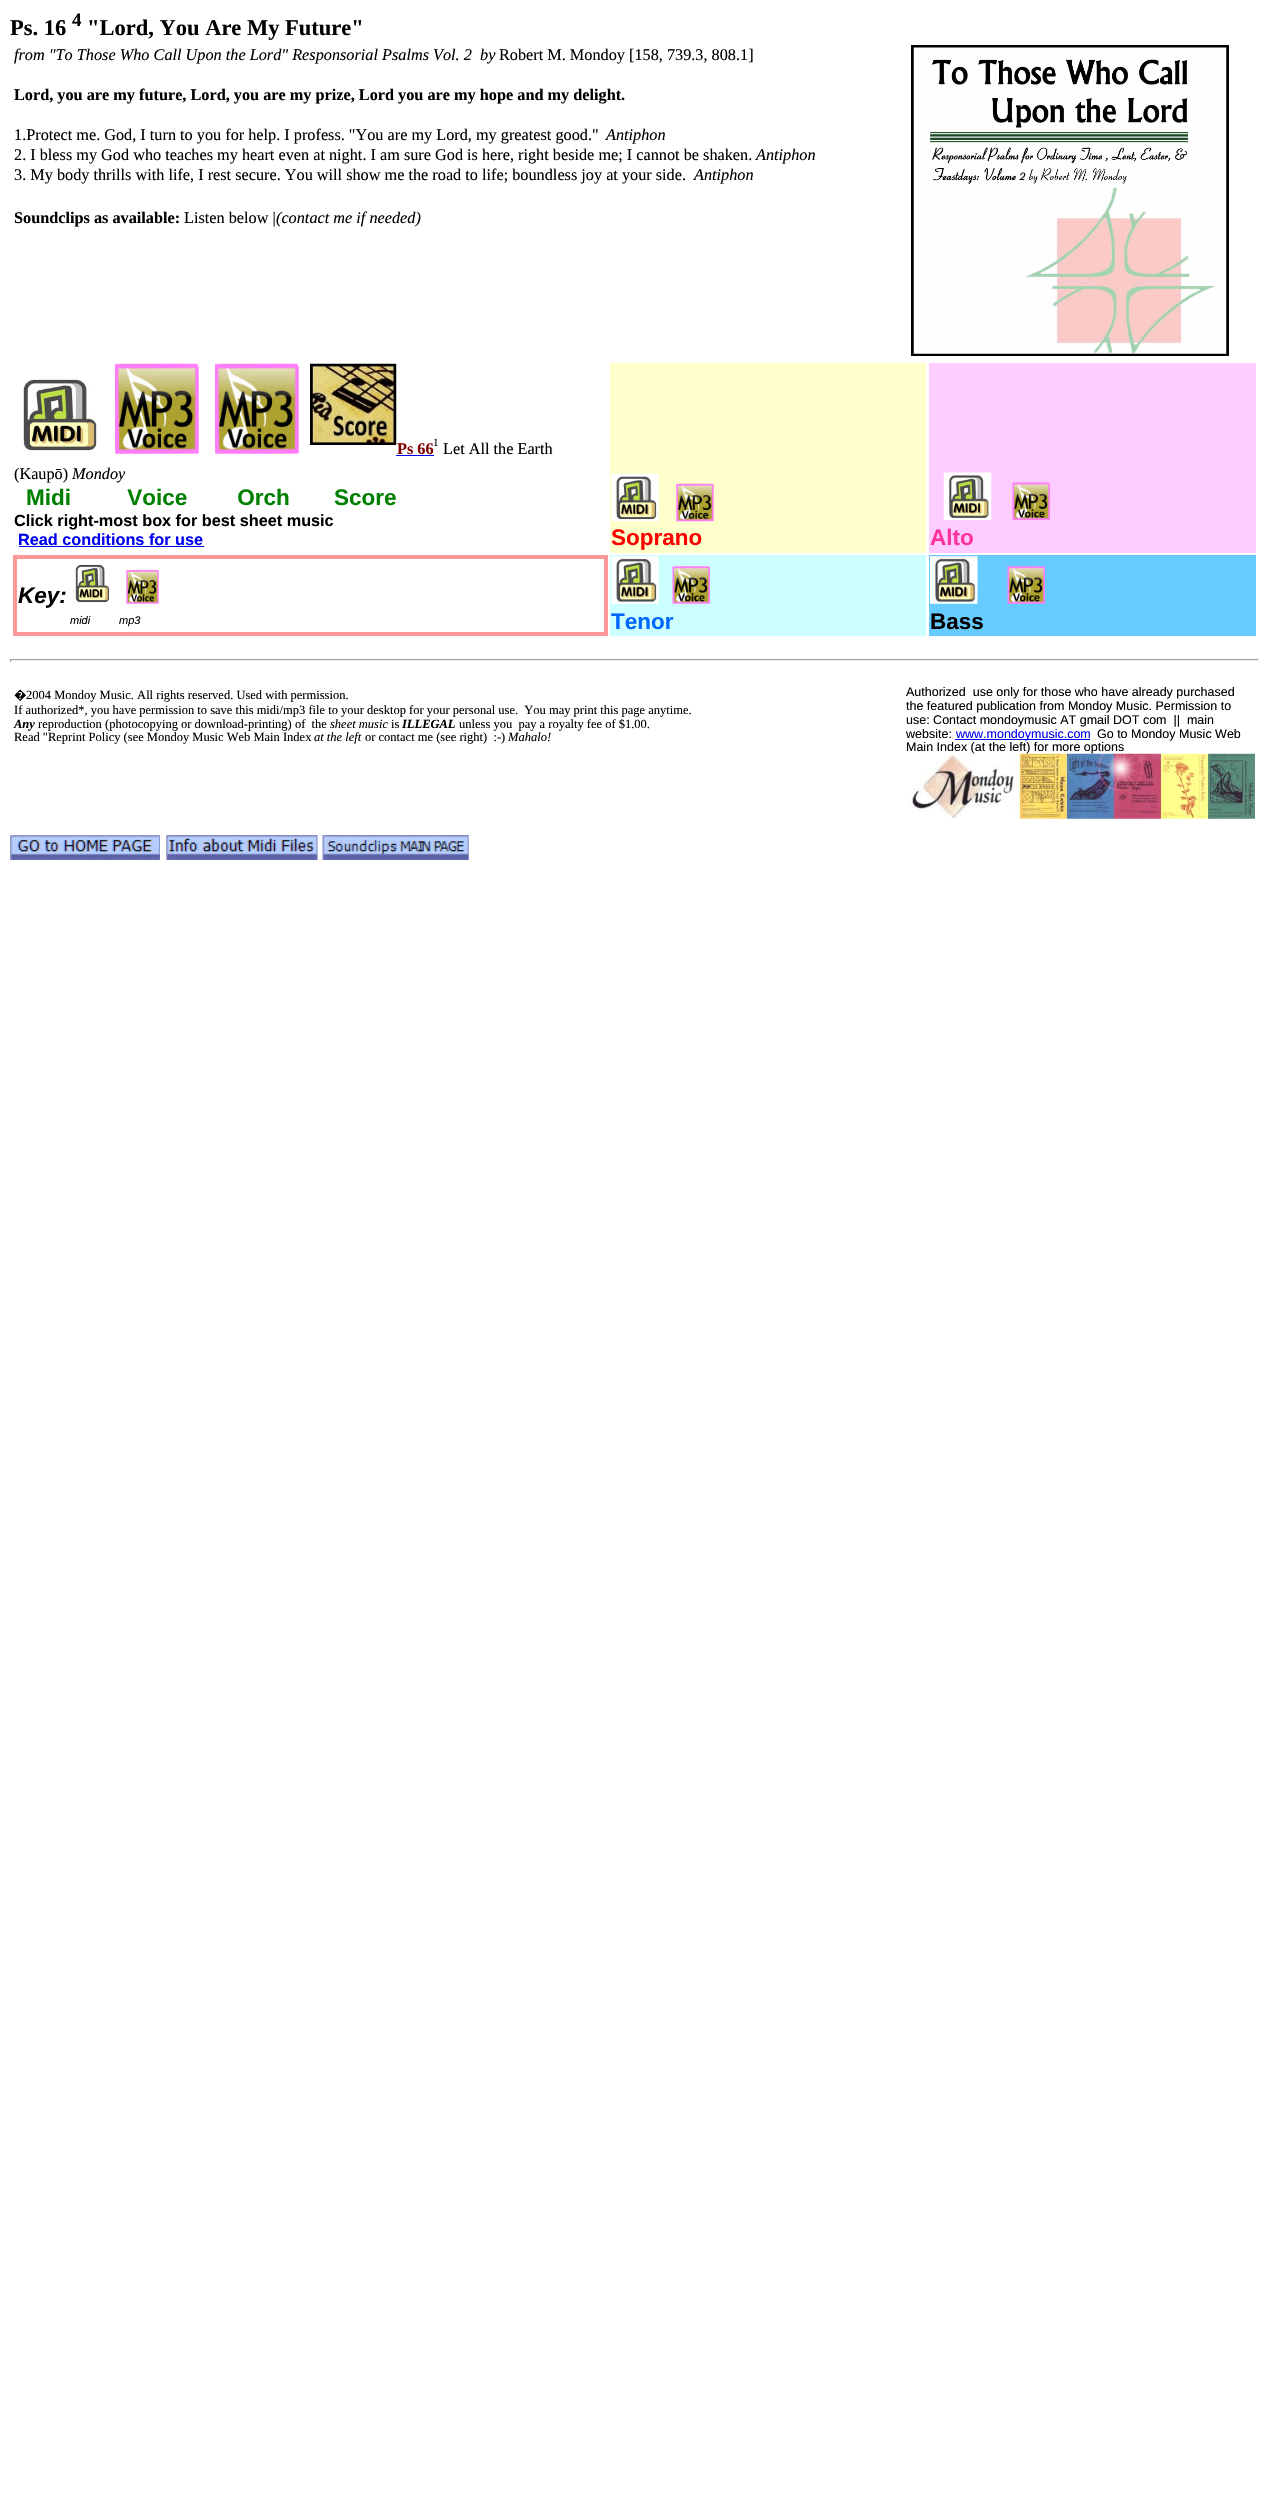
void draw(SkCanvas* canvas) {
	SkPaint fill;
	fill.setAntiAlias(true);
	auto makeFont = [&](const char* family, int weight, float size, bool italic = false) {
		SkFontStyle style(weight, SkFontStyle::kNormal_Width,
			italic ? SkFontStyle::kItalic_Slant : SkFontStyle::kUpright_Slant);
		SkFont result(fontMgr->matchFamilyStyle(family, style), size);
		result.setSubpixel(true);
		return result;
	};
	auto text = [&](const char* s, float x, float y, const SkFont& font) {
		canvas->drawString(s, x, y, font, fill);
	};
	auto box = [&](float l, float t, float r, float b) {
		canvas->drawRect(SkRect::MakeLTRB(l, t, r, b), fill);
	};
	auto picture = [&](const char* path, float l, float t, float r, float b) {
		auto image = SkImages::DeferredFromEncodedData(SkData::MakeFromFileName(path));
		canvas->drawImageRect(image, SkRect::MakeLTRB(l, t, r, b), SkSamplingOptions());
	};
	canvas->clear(0xFFFFFFFF);
	fill.setStyle(SkPaint::kStroke_Style);
	fill.setStrokeWidth(3);
	fill.setColor(0xFF000000);
	canvas->drawRect(SkRect::MakeLTRB(912.5f, 46.5f, 1227.5f, 354.5f), fill);
	picture("image0.png", 913, 47, 1227, 354);
	picture("image1.png", 23, 379, 97, 452);
	picture("image2.png", 115, 363, 199, 454);
	picture("image2.png", 215, 363, 299, 454);
	picture("image3.png", 310, 363, 397, 445);
	fill.setStyle(SkPaint::kFill_Style);
	fill.setColor(0xFF0000EE);
	box(396, 455, 434, 456);
	box(19, 546, 204, 547);
	fill.setColor(0xFFFFFFCC);
	box(610, 363, 926, 553);
	picture("image4.png", 611, 473, 659, 522);
	picture("image5.png", 676, 483, 714, 522);
	fill.setColor(0xFFFFCCFF);
	box(929, 363, 1256, 553);
	picture("image6.png", 943, 472, 992, 520);
	picture("image7.png", 1012, 482, 1050, 520);
	fill.setStyle(SkPaint::kStroke_Style);
	fill.setStrokeWidth(4);
	fill.setColor(0xFFFF9999);
	canvas->drawRect(SkRect::MakeLTRB(15, 557, 606, 634), fill);
	picture("image8.png", 75, 564, 110, 603);
	picture("image9.png", 126, 570, 159, 604);
	fill.setStyle(SkPaint::kFill_Style);
	fill.setColor(0xFFCCFFFF);
	box(610, 555, 926, 636);
	picture("image10.png", 611, 556, 659, 604);
	picture("image11.png", 672, 566, 710, 604);
	fill.setColor(0xFF66CCFF);
	box(929, 555, 1256, 636);
	picture("image12.png", 930, 556, 978, 604);
	picture("image13.png", 1007, 566, 1045, 604);
	fill.setColor(0xFF9F9F9F);
	box(10, 659, 1259, 660);
	fill.setColor(0xFFEEEEEE);
	box(1258, 659, 1259, 662);
	box(10, 660, 1259, 661);
	fill.setColor(0xFF9F9F9F);
	box(10, 659, 11, 662);
	fill.setColor(0xFF0000EE);
	box(955, 739, 1090, 740);
	picture("image14.png", 910, 753, 1255, 819);
	picture("image15.png", 10, 835, 160, 860);
	picture("image16.png", 166, 835, 318, 860);
	picture("image17.png", 322, 835, 469, 860);
	auto font1 = makeFont("Liberation Serif", 700, 22.5f);
	fill.setColor(0xFF000000);
	text("Ps. 16", 10, 35, font1);
	auto font2 = makeFont("Liberation Serif", 700, 19);
	text("4", 72, 26, font2);
	text("\"Lord, You Are My Future\"", 87, 35, font1);
	auto font3 = makeFont("Liberation Serif", 400, 16.25f, true);
	text("from \"To Those Who Call Upon the Lord\" Responsorial Psalms Vol. 2", 14, 60, font3);
	text("by", 480, 60, font3);
	auto font4 = makeFont("Liberation Serif", 400, 16.25f);
	text("Robert M. Mondoy [158, 739.3, 808.1]", 499, 60, font4);
	auto font5 = makeFont("Liberation Serif", 700, 16.25f);
	text("Lord, you are my future, Lord, you are my prize, Lord you are my hope and my delight.", 14, 100, font5);
	text("1.Protect me. God, I turn to you for help. I profess. \"You are my Lord, my greatest good.\"", 14, 140, font4);
	text("Antiphon", 606, 140, font3);
	text("2. I bless my God who teaches my heart even at night. I am sure God is here, right beside me; I cannot be shaken.", 14, 160, font4);
	text("Antiphon", 756, 160, font3);
	text("3. My body thrills with life, I rest secure. You will show me the road to life; boundless joy at your side.", 14, 180, font4);
	text("Antiphon", 694, 180, font3);
	text("Soundclips as available:", 14, 223, font5);
	text("Listen below |", 184, 223, font4);
	text("(contact me if needed)", 276, 223, font3);
	fill.setColor(0xFF800000);
	text("Ps 66", 397, 454, font5);
	auto font6 = makeFont("Liberation Serif", 400, 11);
	fill.setColor(0xFF000000);
	text("1", 433, 446, font6);
	text("Let All the Earth", 443, 454, font4);
	text("(Kaupō)", 14, 479, font4);
	text("Mondoy", 72, 479, font3);
	auto font7 = makeFont("Liberation Sans", 700, 22.5f);
	fill.setColor(0xFF008000);
	text("Midi         Voice        Orch", 26, 505, font7);
	text("Score", 334, 505, font7);
	auto font8 = makeFont("Liberation Sans", 700, 16.25f);
	fill.setColor(0xFF000000);
	text("Click right-most box for best sheet music", 14, 526, font8);
	fill.setColor(0xFF0000EE);
	text("Read conditions for use", 18, 545, font8);
	fill.setColor(0xFFFF0000);
	text("Soprano", 611, 545, font7);
	fill.setColor(0xFFFF3399);
	text("Alto", 930, 545, font7);
	auto font9 = makeFont("Liberation Sans", 700, 22.5f, true);
	fill.setColor(0xFF000000);
	text("Key:", 18, 603, font9);
	auto font10 = makeFont("Liberation Sans", 400, 11, true);
	text("midi", 70, 624, font10);
	text("mp3", 119, 624, font10);
	fill.setColor(0xFF0066FF);
	text("Tenor", 611, 629, font7);
	fill.setColor(0xFF000000);
	text("Bass", 930, 629, font7);
	auto font11 = makeFont("Noto Sans", 400, 12.5f);
	text("�", 14, 699, font11);
	auto font12 = makeFont("Liberation Serif", 400, 12.5f);
	text("2004 Mondoy Music. All rights reserved. Used with permission.", 26, 699, font12);
	text("If authorized*, you have permission to save this midi/mp3 file to your desktop for your personal use.  You may print this page anytime.", 14, 714, font12);
	auto font13 = makeFont("Liberation Serif", 700, 12.5f, true);
	text("Any", 14, 728, font13);
	text("reproduction (photocopying or download-printing) of  the", 38, 728, font12);
	auto font14 = makeFont("Liberation Serif", 400, 12.5f, true);
	text("sheet music", 330, 728, font14);
	text("is", 391, 728, font12);
	text("ILLEGAL", 402, 728, font13);
	text("unless you  pay a royalty fee of $1.00.", 459, 728, font12);
	text("Read \"Reprint Policy (see Mondoy Music Web Main Index", 14, 741, font12);
	text("at the left", 314, 741, font14);
	text("or contact me (see right)  :-)", 365, 741, font12);
	text("Mahalo!", 508, 741, font14);
	auto font15 = makeFont("Liberation Sans", 400, 12.5f);
	text("Authorized  use only for those who have already purchased", 906, 696, font15);
	text("the featured publication from Mondoy Music. Permission to", 906, 710, font15);
	text("use: Contact mondoymusic AT gmail DOT com  ||  main", 906, 724, font15);
	text("website:", 906, 738, font15);
	fill.setColor(0xFF0000EE);
	text("www.mondoymusic.com", 956, 738, font15);
	fill.setColor(0xFF000000);
	text("Go to Mondoy Music Web", 1097, 738, font15);
	text("Main Index (at the left) for more options", 906, 751, font15);
}
